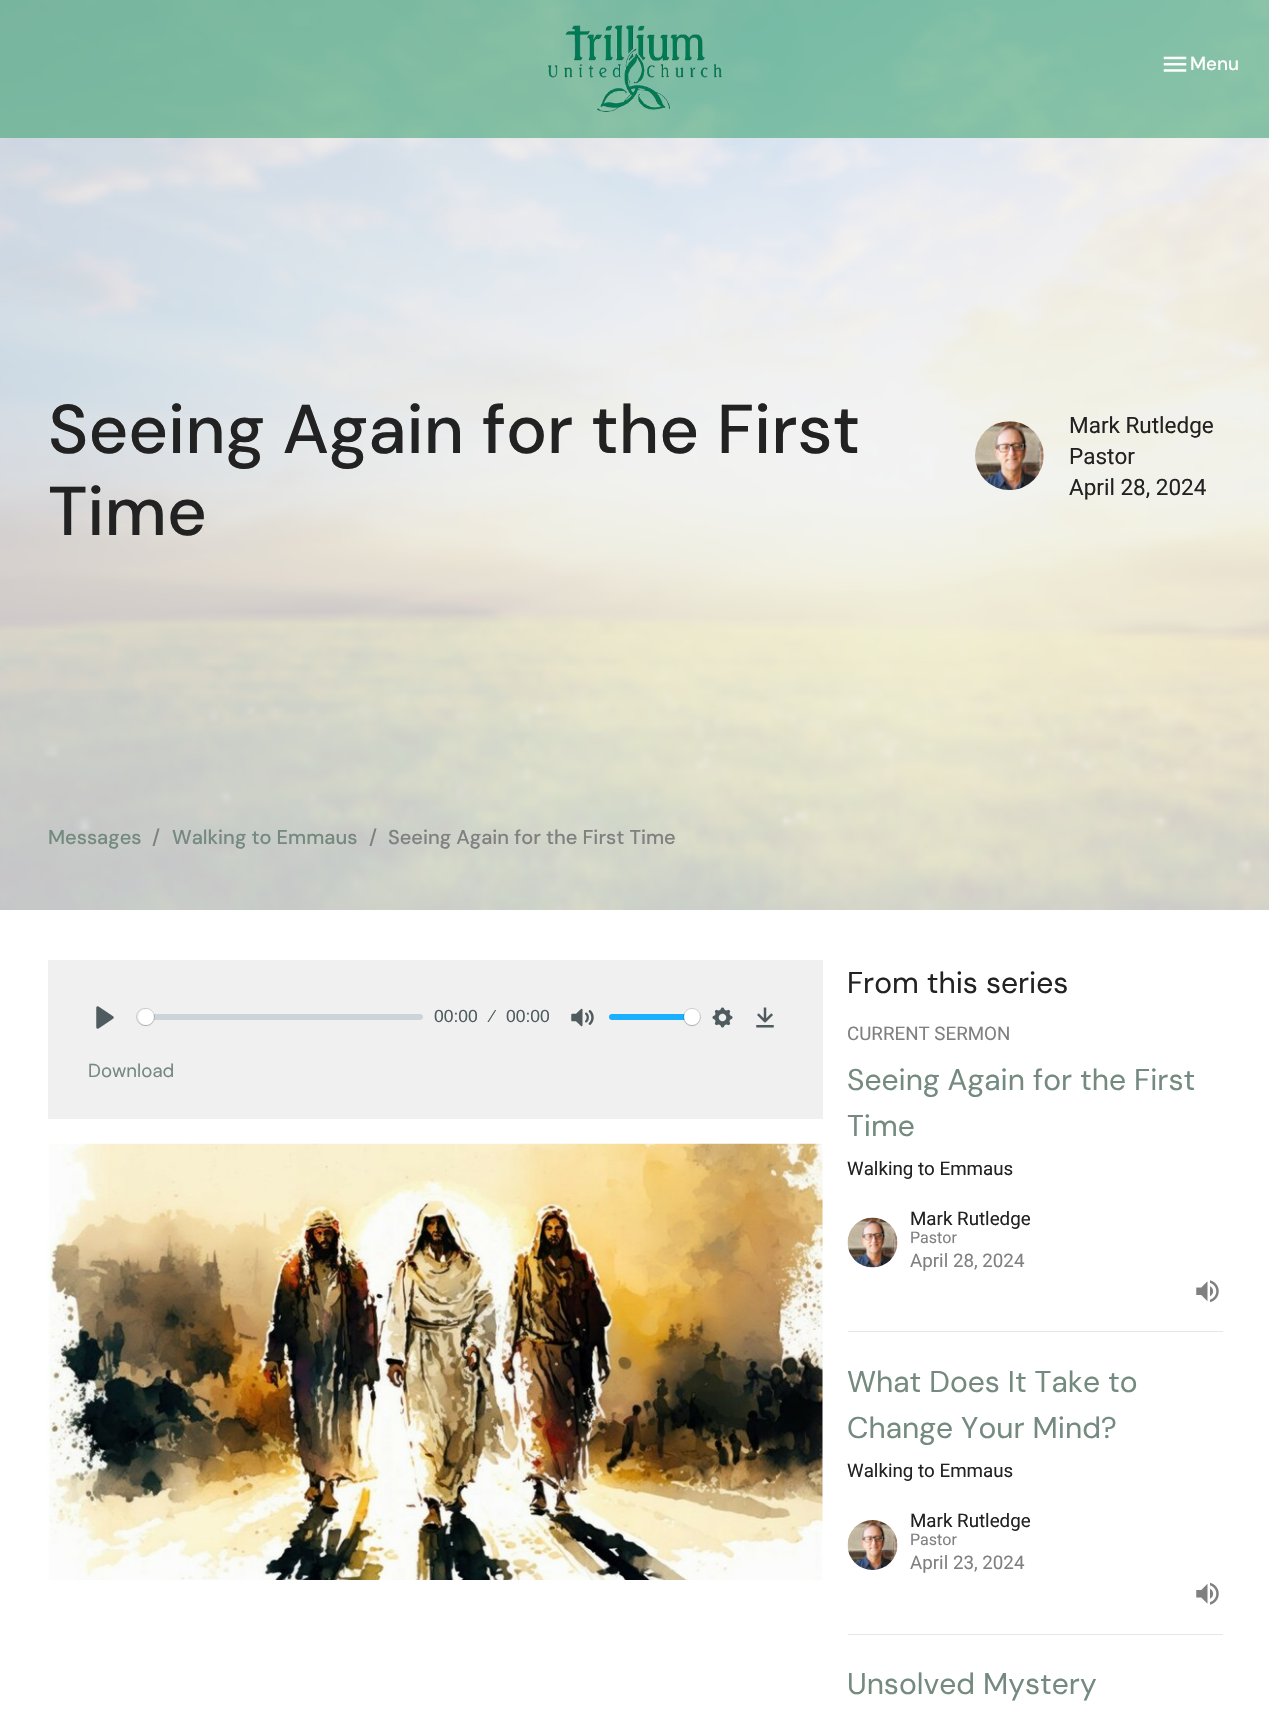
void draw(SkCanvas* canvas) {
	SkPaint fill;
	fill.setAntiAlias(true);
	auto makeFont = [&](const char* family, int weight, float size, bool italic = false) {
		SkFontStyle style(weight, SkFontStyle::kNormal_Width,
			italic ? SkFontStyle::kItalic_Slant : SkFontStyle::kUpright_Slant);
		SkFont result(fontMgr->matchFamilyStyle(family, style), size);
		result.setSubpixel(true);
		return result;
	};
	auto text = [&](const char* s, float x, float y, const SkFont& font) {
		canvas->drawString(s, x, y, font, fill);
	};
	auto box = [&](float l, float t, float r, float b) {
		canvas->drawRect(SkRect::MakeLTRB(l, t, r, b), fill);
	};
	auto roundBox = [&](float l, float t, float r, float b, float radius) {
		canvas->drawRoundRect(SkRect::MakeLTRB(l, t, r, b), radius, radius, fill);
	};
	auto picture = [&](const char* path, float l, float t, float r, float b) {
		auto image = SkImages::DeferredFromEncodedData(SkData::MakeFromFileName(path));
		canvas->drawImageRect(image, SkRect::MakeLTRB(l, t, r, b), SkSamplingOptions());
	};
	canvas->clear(0xFFFFFFFF);
	picture("image2.png", 0, 0, 1269, 910);
	fill.setColor(0x87309C66);
	box(0, 0, 1269, 138);
	picture("image0.png", 548, 25, 723, 112);
	picture("image1.png", 1163, 56, 1187, 72);
	picture("image3.png", 975, 421, 1044, 490);
	fill.setColor(0xFFF0F0F0);
	box(48, 960, 823, 1119);
	picture("image4.png", 96, 1006, 114, 1029);
	fill.setColor(0xA8B7C5CD);
	roundBox(138, 1014, 423, 1020, 3);
	fill.setStyle(SkPaint::kStroke_Style);
	fill.setStrokeWidth(1);
	fill.setColor(0x332F343D);
	canvas->drawRoundRect(SkRect::MakeLTRB(136.5f, 1008.5f, 154.5f, 1025.5f), 8.5f, 8.5f, fill);
	fill.setStyle(SkPaint::kFill_Style);
	fill.setColor(0x26000000);
	fill.setMaskFilter(SkMaskFilter::MakeBlur(kNormal_SkBlurStyle, 0.5f));
	canvas->drawRoundRect(SkRect::MakeLTRB(138, 1010, 154, 1026), 8, 8, fill);
	fill.setMaskFilter(nullptr);
	fill.setColor(0xFFFFFFFF);
	canvas->drawCircle(146, 1017, 8, fill);
	picture("image5.png", 571, 1008, 594, 1027);
	fill.setColor(0xFF1AAFFF);
	roundBox(609, 1014, 700, 1020, 3);
	fill.setStyle(SkPaint::kStroke_Style);
	fill.setColor(0x332F343D);
	canvas->drawCircle(692, 1017, 8.5f, fill);
	fill.setStyle(SkPaint::kFill_Style);
	fill.setColor(0x26000000);
	fill.setMaskFilter(SkMaskFilter::MakeBlur(kNormal_SkBlurStyle, 0.5f));
	canvas->drawRoundRect(SkRect::MakeLTRB(684, 1010, 700, 1026), 8, 8, fill);
	fill.setMaskFilter(nullptr);
	fill.setColor(0xFFFFFFFF);
	canvas->drawCircle(692, 1017, 8, fill);
	picture("image6.png", 712, 1007, 733, 1028);
	picture("image7.png", 756, 1007, 774, 1028);
	picture("image8.png", 47, 1143, 823, 1580);
	fill.setColor(0xFFE6E6E6);
	box(848, 1331, 1223, 1332);
	picture("image9.png", 847, 1217, 898, 1268);
	picture("image10.png", 1196, 1280, 1219, 1303);
	box(848, 1634, 1223, 1635);
	picture("image11.png", 847, 1520, 898, 1570);
	picture("image12.png", 1196, 1582, 1219, 1605);
	auto font1 = makeFont("DM Sans", 500, 18.75f);
	fill.setColor(0xFFFFFFFF);
	text("Menu", 1190, 70, font1);
	auto font2 = makeFont("DM Sans", 500, 68.75f);
	fill.setColor(0xFF222222);
	text("Seeing Again for the First", 48, 453, font2);
	text("Time", 48, 535, font2);
	auto font3 = makeFont("Roboto", 400, 22.5f);
	text("Mark Rutledge", 1069, 433, font3);
	text("Pastor", 1069, 464, font3);
	text("April 28, 2024", 1069, 495, font3);
	auto font4 = makeFont("DM Sans", 500, 20);
	fill.setColor(0xFF748A80);
	text("Messages", 48, 844, font4);
	fill.setColor(0xFF808080);
	text("/", 152, 844, font4);
	fill.setColor(0xFF748A80);
	text("Walking to Emmaus", 172, 844, font4);
	fill.setColor(0xFF808080);
	text("/", 369, 844, font4);
	text("Seeing Again for the First Time", 388, 844, font4);
	auto font5 = makeFont("Liberation Sans", 400, 17.5f);
	fill.setColor(0xFF4F5B5F);
	text("00:00", 434, 1022, font5);
	text("⁄", 491, 1022, font5);
	text("00:00", 506, 1022, font5);
	auto font6 = makeFont("DM Sans", 400, 18.75f);
	fill.setColor(0xFF748A80);
	text("Download", 88, 1077, font6);
	auto font7 = makeFont("DM Sans", 400, 30);
	fill.setColor(0xFF222222);
	text("From this series", 847, 993, font7);
	auto font8 = makeFont("Roboto", 400, 18.75f);
	fill.setColor(0xFF808080);
	text("CURRENT SERMON", 847, 1040, font8);
	fill.setColor(0xFF748A80);
	text("Seeing Again for the First", 847, 1090, font7);
	text("Time", 847, 1136, font7);
	fill.setColor(0xFF222222);
	text("Walking to Emmaus", 847, 1175, font8);
	text("Mark Rutledge", 910, 1225, font8);
	auto font9 = makeFont("Roboto", 400, 16);
	fill.setColor(0xFF808080);
	text("Pastor", 910, 1243, font9);
	text("April 28, 2024", 910, 1267, font8);
	fill.setColor(0xFF748A80);
	text("What Does It Take to", 847, 1392, font7);
	text("Change Your Mind?", 847, 1438, font7);
	fill.setColor(0xFF222222);
	text("Walking to Emmaus", 847, 1477, font8);
	text("Mark Rutledge", 910, 1527, font8);
	fill.setColor(0xFF808080);
	text("Pastor", 910, 1545, font9);
	text("April 23, 2024", 910, 1569, font8);
	fill.setColor(0xFF748A80);
	text("Unsolved Mystery", 847, 1694, font7);
}
